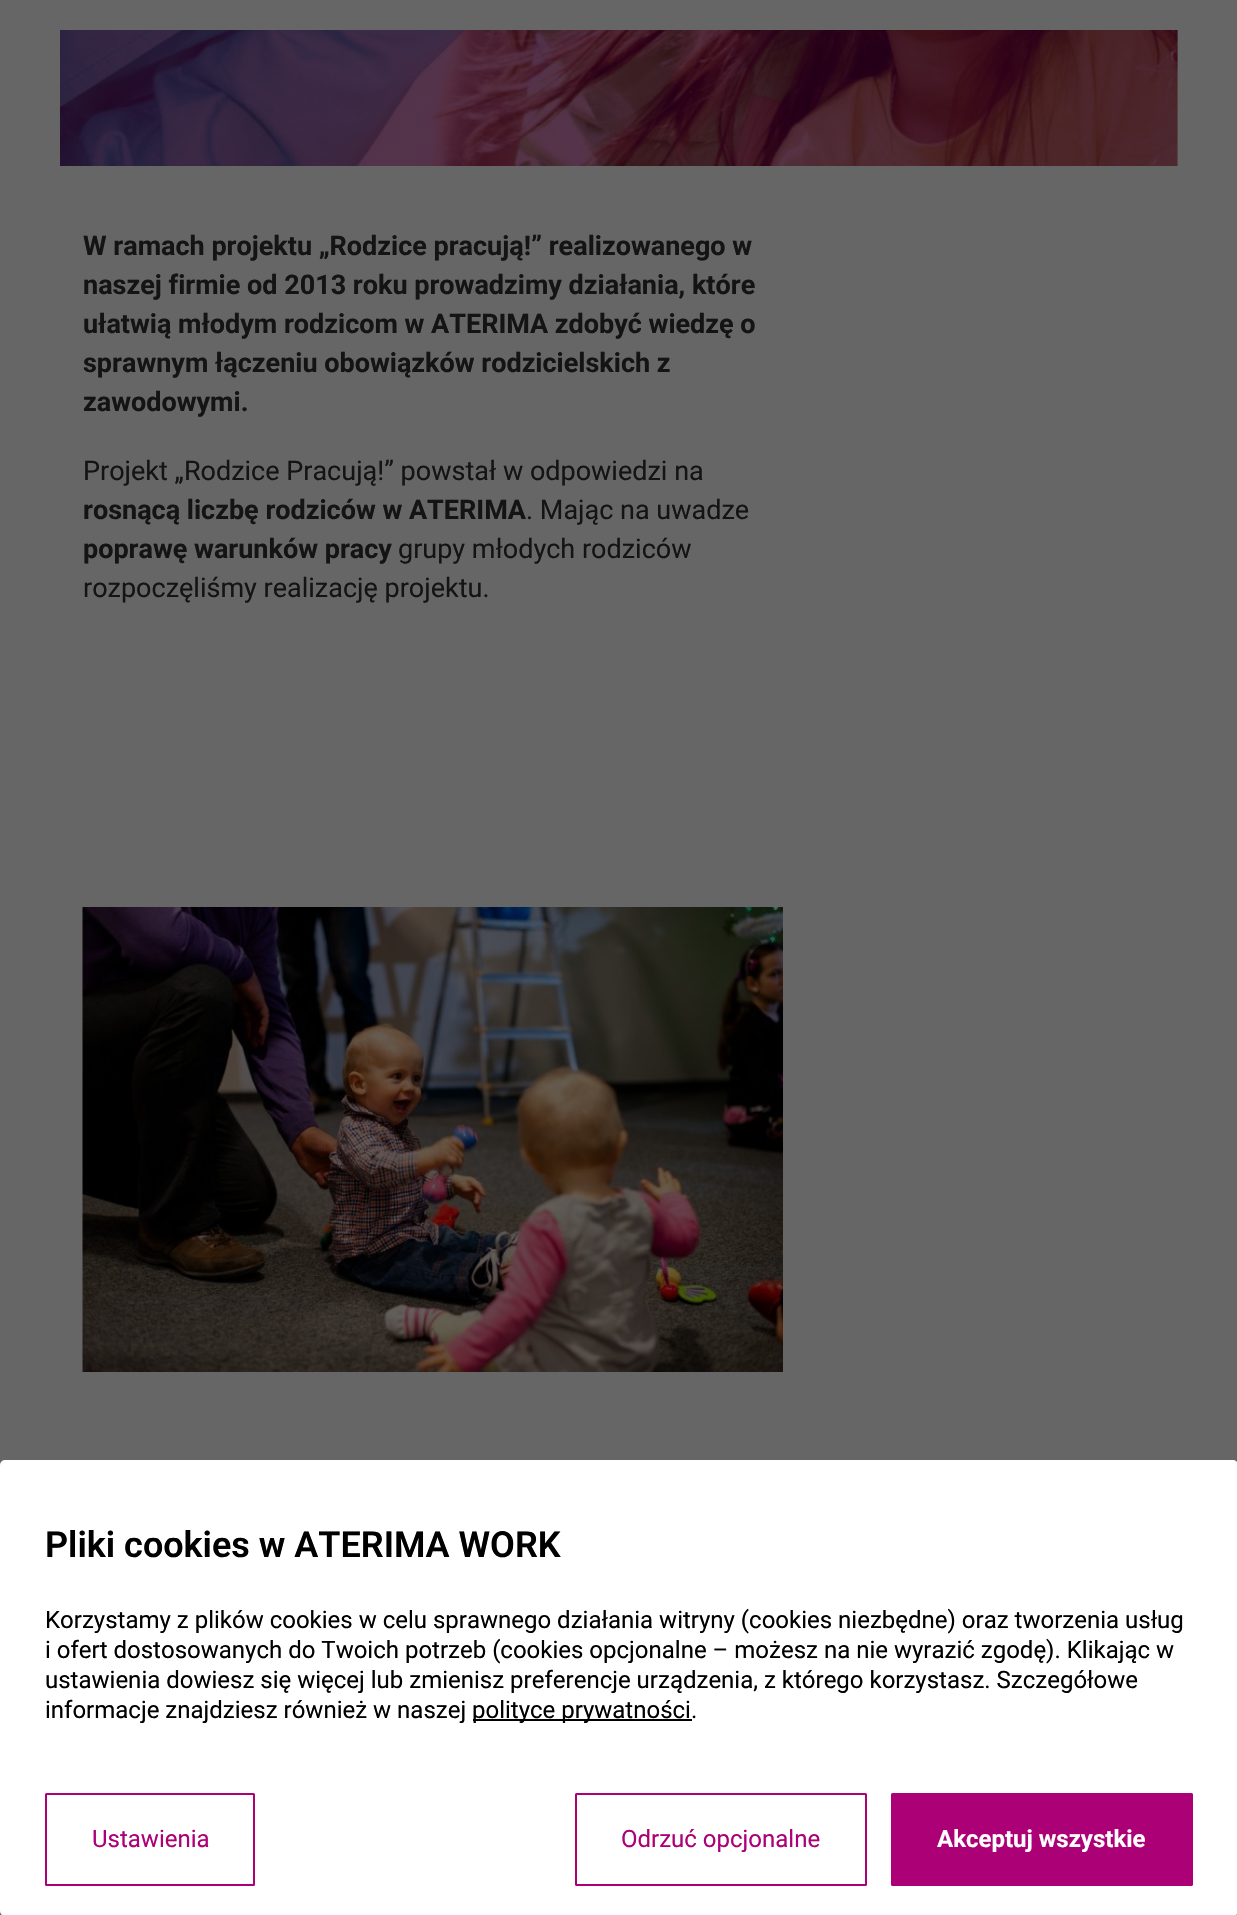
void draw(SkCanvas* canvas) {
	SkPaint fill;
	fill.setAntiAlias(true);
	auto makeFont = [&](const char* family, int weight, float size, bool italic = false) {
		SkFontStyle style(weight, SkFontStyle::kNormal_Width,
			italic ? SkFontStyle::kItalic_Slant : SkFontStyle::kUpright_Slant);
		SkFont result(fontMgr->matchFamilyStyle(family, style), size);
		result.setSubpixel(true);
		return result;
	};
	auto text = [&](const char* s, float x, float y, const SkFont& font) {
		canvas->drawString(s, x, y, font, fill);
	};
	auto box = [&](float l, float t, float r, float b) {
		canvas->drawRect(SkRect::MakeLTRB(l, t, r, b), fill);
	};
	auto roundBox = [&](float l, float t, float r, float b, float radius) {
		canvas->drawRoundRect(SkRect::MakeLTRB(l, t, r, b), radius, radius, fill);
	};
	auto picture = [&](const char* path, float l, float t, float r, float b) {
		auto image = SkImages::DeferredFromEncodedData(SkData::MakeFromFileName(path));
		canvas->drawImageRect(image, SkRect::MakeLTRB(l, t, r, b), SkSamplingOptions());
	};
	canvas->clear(0xFF666666);
	picture("image0.png", 60, 30, 1178, 166);
	picture("image1.png", 82, 907, 783, 1372);
	fill.setColor(0xFFFFFFFF);
	roundBox(0, 1460, 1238, 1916, 5);
	fill.setColor(0xFF000000);
	box(473, 1719, 692, 1721);
	fill.setStyle(SkPaint::kStroke_Style);
	fill.setStrokeWidth(2);
	fill.setColor(0xFFAC0077);
	canvas->drawRoundRect(SkRect::MakeLTRB(46, 1794, 254, 1885), 0.5f, 0.5f, fill);
	canvas->drawRoundRect(SkRect::MakeLTRB(576, 1794, 866, 1885), 0.5f, 0.5f, fill);
	fill.setStyle(SkPaint::kFill_Style);
	canvas->drawRoundRect(SkRect::MakeLTRB(892, 1794, 1192, 1885), 0.5f, 0.5f, fill);
	fill.setStyle(SkPaint::kStroke_Style);
	canvas->drawRoundRect(SkRect::MakeLTRB(892, 1794, 1192, 1885), 0.5f, 0.5f, fill);
	auto font1 = makeFont("Roboto", 700, 27);
	fill.setStyle(SkPaint::kFill_Style);
	fill.setColor(0xFF141414);
	text("W ramach projektu „Rodzice pracują!” realizowanego w", 83, 255, font1);
	text("naszej firmie od 2013 roku prowadzimy działania, które", 83, 294, font1);
	text("ułatwią młodym rodzicom w ATERIMA zdobyć wiedzę o", 83, 333, font1);
	text("sprawnym łączeniu obowiązków rodzicielskich z", 83, 372, font1);
	text("zawodowymi.", 83, 411, font1);
	auto font2 = makeFont("Roboto", 400, 27);
	text("Projekt „Rodzice Pracują!” powstał w odpowiedzi na", 83, 480, font2);
	text("rosnącą liczbę rodziców w ATERIMA", 83, 519, font1);
	text(". Mając na uwadze", 526, 519, font2);
	text("poprawę warunków pracy", 83, 558, font1);
	text("grupy młodych rodziców", 398, 558, font2);
	text("rozpoczęliśmy realizację projektu.", 83, 597, font2);
	auto font3 = makeFont("Roboto", 600, 36);
	fill.setColor(0xFF000000);
	text("Pliki cookies w ATERIMA WORK", 45, 1557, font3);
	auto font4 = makeFont("Roboto", 400, 24);
	text("Korzystamy z plików cookies w celu sprawnego działania witryny (cookies niezbędne) oraz tworzenia usług", 45, 1628, font4);
	text("i ofert dostosowanych do Twoich potrzeb (cookies opcjonalne – możesz na nie wyrazić zgodę). Klikając w", 45, 1658, font4);
	text("ustawienia dowiesz się więcej lub zmienisz preferencje urządzenia, z którego korzystasz. Szczegółowe", 45, 1688, font4);
	text("informacje znajdziesz również w naszej", 45, 1718, font4);
	text("polityce prywatności.", 472, 1718, font4);
	fill.setColor(0xFFAC0077);
	text("Ustawienia", 92, 1847, font4);
	text("Odrzuć opcjonalne", 621, 1847, font4);
	auto font5 = makeFont("Roboto", 700, 24);
	fill.setColor(0xFFFFFFFF);
	text("Akceptuj wszystkie", 937, 1847, font5);
}
